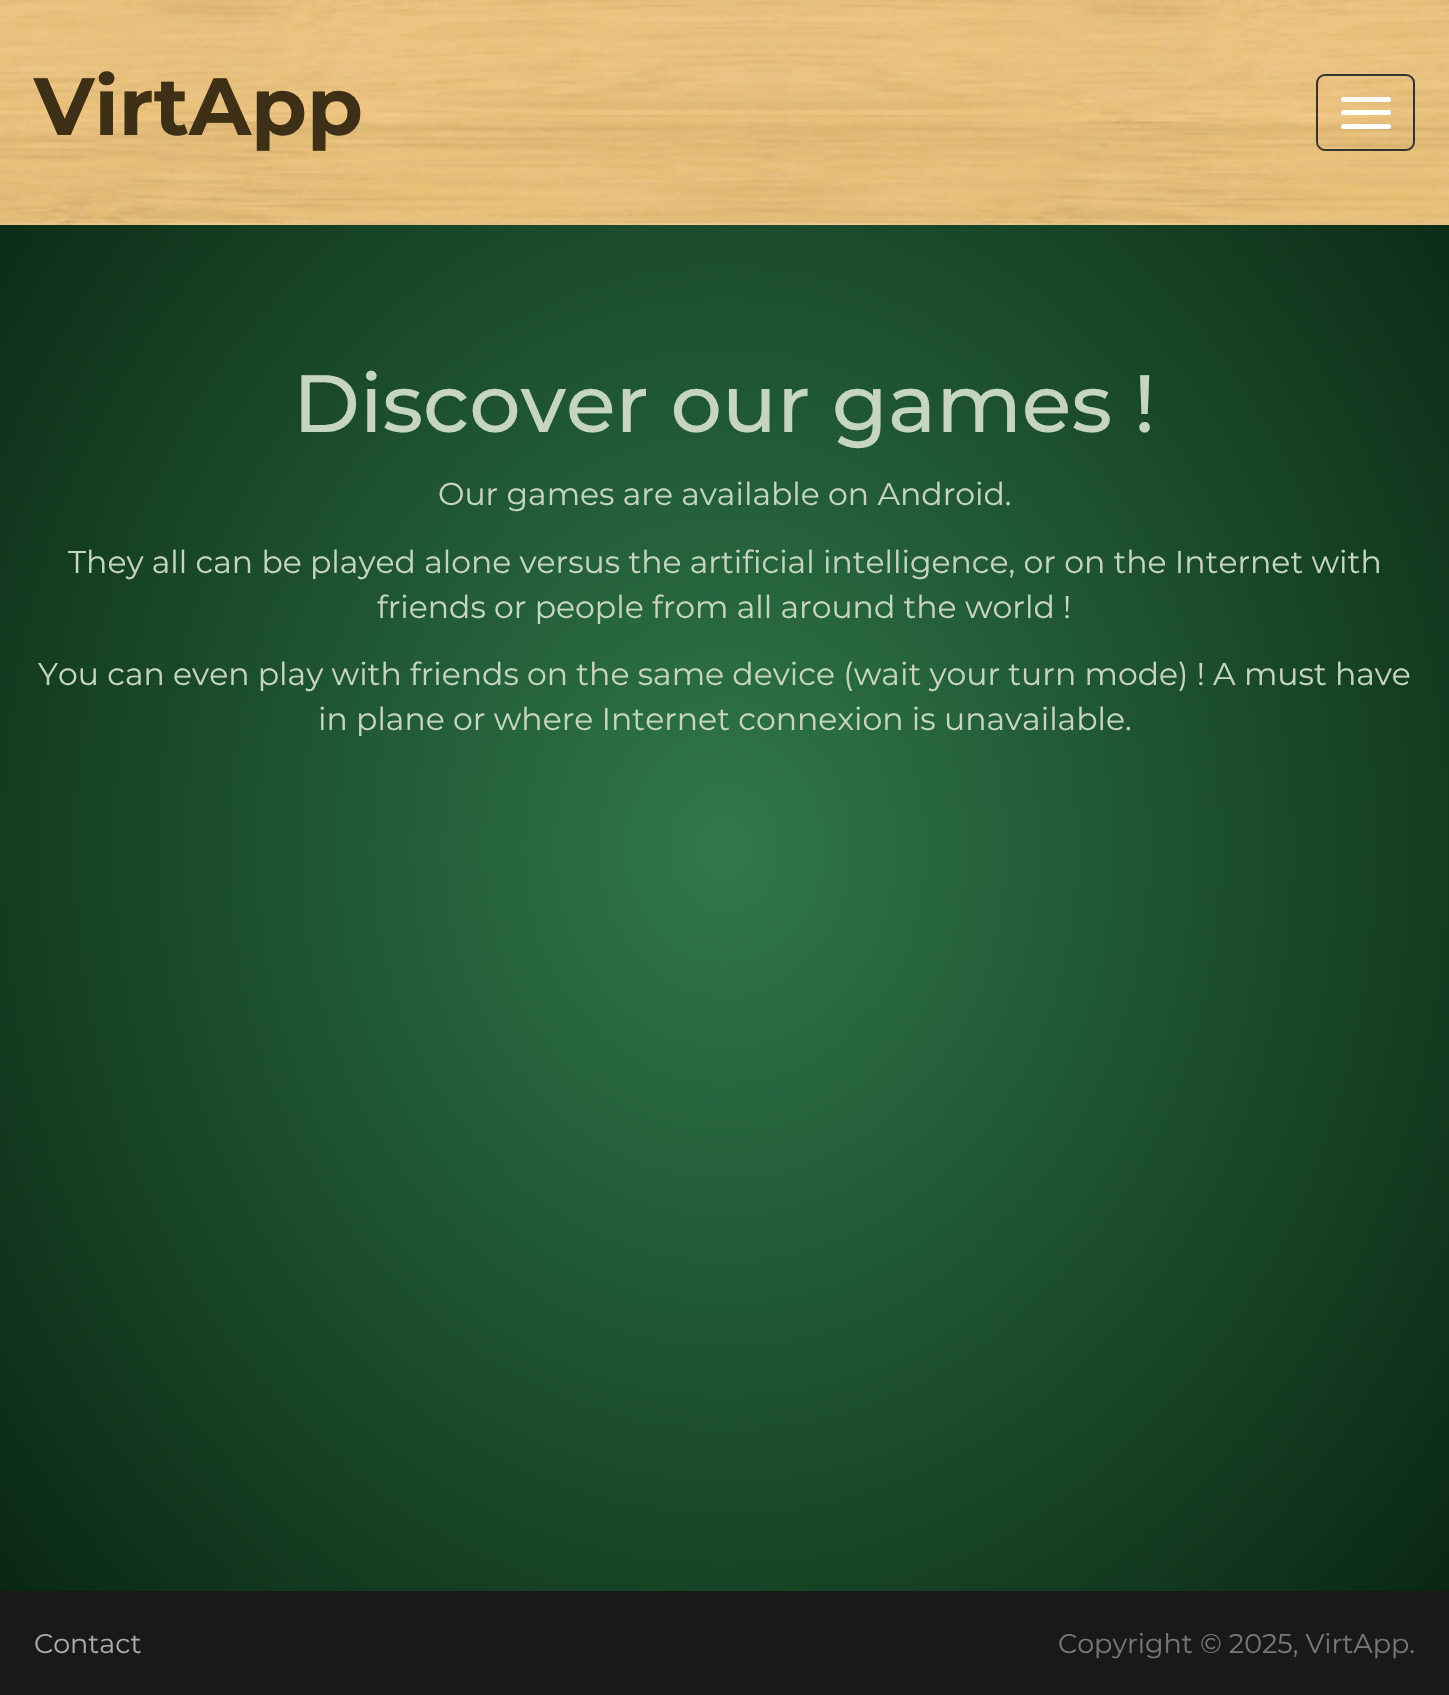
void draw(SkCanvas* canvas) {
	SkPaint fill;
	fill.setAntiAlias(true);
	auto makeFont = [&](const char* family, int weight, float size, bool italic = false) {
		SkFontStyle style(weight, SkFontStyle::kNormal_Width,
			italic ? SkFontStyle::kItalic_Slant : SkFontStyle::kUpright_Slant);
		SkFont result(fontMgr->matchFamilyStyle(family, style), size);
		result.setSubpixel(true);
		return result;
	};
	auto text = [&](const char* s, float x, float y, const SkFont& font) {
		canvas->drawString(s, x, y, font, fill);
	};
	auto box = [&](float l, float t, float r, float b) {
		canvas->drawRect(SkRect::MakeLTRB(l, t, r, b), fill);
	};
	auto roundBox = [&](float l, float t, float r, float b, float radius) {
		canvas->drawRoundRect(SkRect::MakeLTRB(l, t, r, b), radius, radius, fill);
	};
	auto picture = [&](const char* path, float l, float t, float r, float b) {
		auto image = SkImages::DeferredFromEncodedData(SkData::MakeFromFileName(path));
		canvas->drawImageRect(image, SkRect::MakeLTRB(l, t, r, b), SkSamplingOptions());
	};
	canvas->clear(0xFFFFFFFF);
	{
		const SkColor colors[] = {0xFF30784A, 0xFF07220F};
		const float stops[] = {0, 1};
		SkMatrix m = SkMatrix::Translate(725, 848).preScale(1025, 1200);
		fill.setShader(SkGradientShader::MakeRadial({0, 0}, 1, colors, stops, 2, SkTileMode::kClamp, 0, &m));
		fill.setAlpha(255);
	}
	box(0, 225, 1449, 1591);
	picture("image0.png", 0, 0, 1449, 225);
	fill.setShader(nullptr);
	fill.setColor(0x26FFFFFF);
	box(0, 223, 1449, 225);
	fill.setStyle(SkPaint::kStroke_Style);
	fill.setStrokeWidth(2);
	fill.setColor(0xFF333333);
	canvas->drawRoundRect(SkRect::MakeLTRB(1317, 75, 1414, 150), 8, 8, fill);
	fill.setStyle(SkPaint::kFill_Style);
	fill.setColor(0xFFFFFFFF);
	roundBox(1341, 97, 1391, 102, 2.5f);
	roundBox(1341, 110, 1391, 115, 2.5f);
	roundBox(1341, 124, 1391, 129, 2.5f);
	fill.setColor(0xFF191919);
	box(0, 1591, 1449, 1695);
	auto font1 = makeFont("Montserrat", 700, 81);
	fill.setColor(0xFF3E3016);
	text("VirtApp", 34, 135, font1);
	auto font2 = makeFont("Montserrat", 500, 81);
	fill.setColor(0xFFC6D6BE);
	text("Discover our games !", 293, 432, font2);
	auto font3 = makeFont("Montserrat", 400, 31.5f);
	text("Our games are available on Android.", 438, 505, font3);
	text("They all can be played alone versus the artificial intelligence, or on the Internet with", 68, 573, font3);
	text("friends or people from all around the world !", 377, 618, font3);
	text("You can even play with friends on the same device (wait your turn mode) ! A must have", 38, 685, font3);
	text("in plane or where Internet connexion is unavailable.", 318, 730, font3);
	auto font4 = makeFont("Montserrat", 400, 27);
	fill.setColor(0xFFAAAAAA);
	text("Contact", 34, 1653, font4);
	fill.setColor(0xFF777777);
	text("Copyright © 2025, VirtApp.", 1058, 1653, font4);
}
